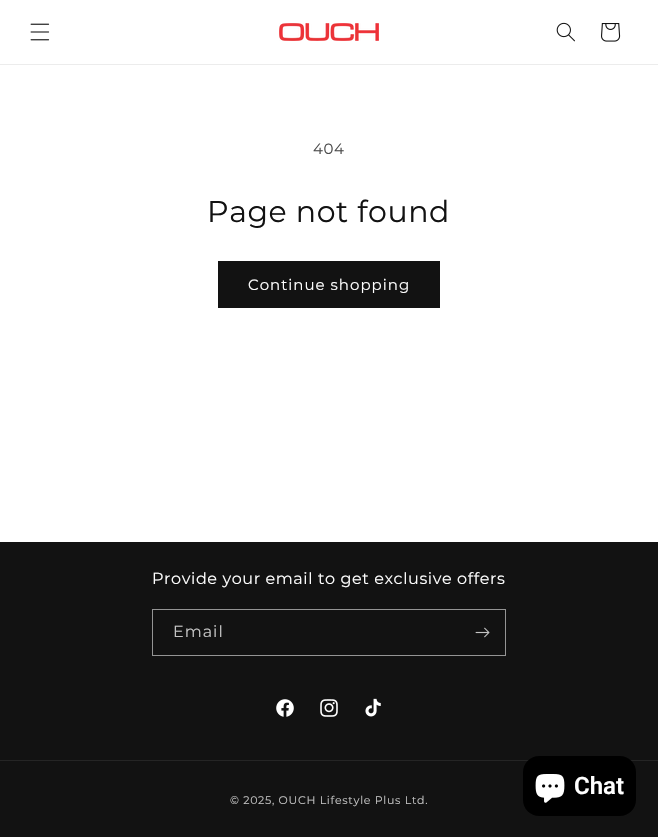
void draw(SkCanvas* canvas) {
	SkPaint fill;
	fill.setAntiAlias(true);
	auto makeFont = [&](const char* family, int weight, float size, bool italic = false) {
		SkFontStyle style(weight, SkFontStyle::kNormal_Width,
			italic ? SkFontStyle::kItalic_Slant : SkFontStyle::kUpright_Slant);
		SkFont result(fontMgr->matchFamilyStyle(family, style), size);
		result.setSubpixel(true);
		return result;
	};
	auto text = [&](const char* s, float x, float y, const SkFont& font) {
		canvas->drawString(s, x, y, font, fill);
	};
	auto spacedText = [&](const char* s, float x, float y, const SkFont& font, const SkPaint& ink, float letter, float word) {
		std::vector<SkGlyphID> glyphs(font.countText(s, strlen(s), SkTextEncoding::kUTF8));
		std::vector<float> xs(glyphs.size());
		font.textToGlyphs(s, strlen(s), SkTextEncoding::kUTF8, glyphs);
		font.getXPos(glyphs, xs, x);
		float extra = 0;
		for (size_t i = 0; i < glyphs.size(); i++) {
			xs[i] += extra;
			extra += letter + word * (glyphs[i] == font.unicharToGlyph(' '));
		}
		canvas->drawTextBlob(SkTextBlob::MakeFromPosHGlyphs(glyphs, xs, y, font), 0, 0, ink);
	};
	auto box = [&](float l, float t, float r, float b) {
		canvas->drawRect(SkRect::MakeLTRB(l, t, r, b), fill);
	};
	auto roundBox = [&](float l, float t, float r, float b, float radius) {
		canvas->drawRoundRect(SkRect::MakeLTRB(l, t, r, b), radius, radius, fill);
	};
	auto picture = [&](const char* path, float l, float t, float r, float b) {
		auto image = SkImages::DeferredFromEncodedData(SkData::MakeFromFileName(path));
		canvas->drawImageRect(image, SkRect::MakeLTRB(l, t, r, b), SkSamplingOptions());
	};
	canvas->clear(0xFFFFFFFF);
	fill.setColor(0xFFECECEC);
	box(0, 64, 658, 65);
	picture("image0.png", 30, 23, 50, 41);
	picture("image1.png", 279, 23, 379, 41);
	picture("image2.png", 556, 22, 575, 42);
	picture("image3.png", 601, 23, 621, 42);
	fill.setColor(0xFF121212);
	box(218, 261, 440, 308);
	box(0, 542, 658, 837);
	fill.setStyle(SkPaint::kStroke_Style);
	fill.setStrokeWidth(1);
	fill.setColor(0xFF949494);
	canvas->drawRect(SkRect::MakeLTRB(152.5f, 609.5f, 505.5f, 655.5f), fill);
	picture("image4.png", 475, 627, 490, 638);
	picture("image5.png", 276, 699, 294, 717);
	picture("image6.png", 320, 699, 338, 717);
	picture("image7.png", 365, 698, 381, 717);
	fill.setStyle(SkPaint::kFill_Style);
	fill.setColor(0xFF252525);
	box(0, 760, 658, 761);
	fill.setColor(0xFF000000);
	roundBox(523, 756, 636, 816, 16);
	picture("image8.png", 535, 774, 565, 803);
	auto font1 = makeFont("Montserrat", 400, 15);
	fill.setColor(0xFF4D4D4D);
	spacedText("404", 313, 154, font1, fill, 0.6f, 0);
	auto font2 = makeFont("Montserrat", 400, 30);
	fill.setColor(0xFF121212);
	spacedText("Page not found", 207, 222, font2, fill, 0.6f, 0);
	fill.setColor(0xFFFFFFFF);
	spacedText("Continue shopping", 248, 290, font1, fill, 1, 0);
	auto font3 = makeFont("Montserrat", 400, 16);
	spacedText("Provide your email to get exclusive offers", 152, 584, font3, fill, 0.6f, 0);
	fill.setColor(0xFFC4C4C4);
	spacedText("Email", 173, 637, font3, fill, 1, 0);
	auto font4 = makeFont("Montserrat", 400, 11);
	spacedText("© 2025, OUCH Lifestyle Plus Ltd.", 230, 804, font4, fill, 0.7f, 0);
	auto font5 = makeFont("Roboto", 600, 24);
	fill.setColor(0xFFFFFFFF);
	text("Chat", 574, 794, font5);
}
